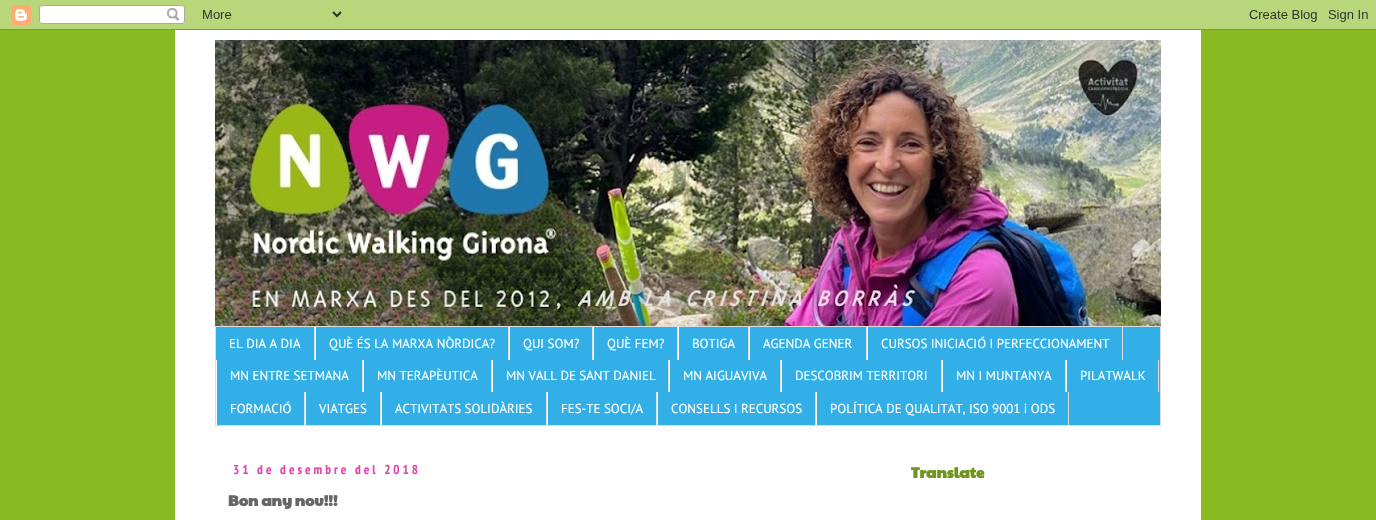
void draw(SkCanvas* canvas) {
	SkPaint fill;
	fill.setAntiAlias(true);
	auto makeFont = [&](const char* family, int weight, float size, bool italic = false) {
		SkFontStyle style(weight, SkFontStyle::kNormal_Width,
			italic ? SkFontStyle::kItalic_Slant : SkFontStyle::kUpright_Slant);
		SkFont result(fontMgr->matchFamilyStyle(family, style), size);
		result.setSubpixel(true);
		return result;
	};
	auto text = [&](const char* s, float x, float y, const SkFont& font) {
		canvas->drawString(s, x, y, font, fill);
	};
	auto spacedText = [&](const char* s, float x, float y, const SkFont& font, const SkPaint& ink, float letter, float word) {
		std::vector<SkGlyphID> glyphs(font.countText(s, strlen(s), SkTextEncoding::kUTF8));
		std::vector<float> xs(glyphs.size());
		font.textToGlyphs(s, strlen(s), SkTextEncoding::kUTF8, glyphs);
		font.getXPos(glyphs, xs, x);
		float extra = 0;
		for (size_t i = 0; i < glyphs.size(); i++) {
			xs[i] += extra;
			extra += letter + word * (glyphs[i] == font.unicharToGlyph(' '));
		}
		canvas->drawTextBlob(SkTextBlob::MakeFromPosHGlyphs(glyphs, xs, y, font), 0, 0, ink);
	};
	auto box = [&](float l, float t, float r, float b) {
		canvas->drawRect(SkRect::MakeLTRB(l, t, r, b), fill);
	};
	auto picture = [&](const char* path, float l, float t, float r, float b) {
		auto image = SkImages::DeferredFromEncodedData(SkData::MakeFromFileName(path));
		canvas->drawImageRect(image, SkRect::MakeLTRB(l, t, r, b), SkSamplingOptions());
	};
	canvas->clear(0xFF88BB21);
	picture("image0.png", 0, 0, 1376, 30);
	fill.setColor(0xFFFFFFFF);
	box(175, 30, 1201, 520);
	picture("image1.png", 215, 40, 1161, 326);
	fill.setColor(0xFF32AFE7);
	canvas->drawRect(SkRect::MakeLTRB(215.5f, 326.5f, 1160.5f, 425.5f), fill);
	fill.setStyle(SkPaint::kStroke_Style);
	fill.setStrokeWidth(1);
	fill.setColor(0xFFDDDDDD);
	canvas->drawRect(SkRect::MakeLTRB(215.5f, 326.5f, 1160.5f, 425.5f), fill);
	fill.setStyle(SkPaint::kFill_Style);
	box(314, 327, 315, 360);
	box(508, 327, 509, 360);
	fill.setColor(0xFFFFFFFF);
	box(315, 327, 316, 360);
	fill.setColor(0xFFDDDDDD);
	box(592, 327, 593, 360);
	fill.setColor(0xFFFFFFFF);
	box(509, 327, 510, 360);
	fill.setColor(0xFFDDDDDD);
	box(677, 327, 678, 360);
	fill.setColor(0xFFFFFFFF);
	box(593, 327, 594, 360);
	fill.setColor(0xFFDDDDDD);
	box(748, 327, 749, 360);
	fill.setColor(0xFFFFFFFF);
	box(678, 327, 679, 360);
	fill.setColor(0xFFDDDDDD);
	box(866, 327, 867, 360);
	fill.setColor(0xFFFFFFFF);
	box(749, 327, 750, 360);
	fill.setColor(0xFFDDDDDD);
	box(1122, 327, 1123, 360);
	fill.setColor(0xFFFFFFFF);
	box(867, 327, 868, 360);
	fill.setColor(0xFFDDDDDD);
	box(362, 360, 363, 392);
	fill.setColor(0xFFFFFFFF);
	box(216, 360, 217, 425);
	fill.setColor(0xFFDDDDDD);
	box(491, 360, 492, 392);
	fill.setColor(0xFFFFFFFF);
	box(363, 360, 364, 392);
	fill.setColor(0xFFDDDDDD);
	box(668, 360, 669, 392);
	fill.setColor(0xFFFFFFFF);
	box(492, 360, 493, 392);
	fill.setColor(0xFFDDDDDD);
	box(780, 360, 781, 392);
	fill.setColor(0xFFFFFFFF);
	box(669, 360, 670, 392);
	fill.setColor(0xFFDDDDDD);
	box(941, 360, 942, 392);
	fill.setColor(0xFFFFFFFF);
	box(781, 360, 782, 392);
	fill.setColor(0xFFDDDDDD);
	box(1065, 360, 1066, 392);
	fill.setColor(0xFFFFFFFF);
	box(942, 360, 943, 392);
	fill.setColor(0xFFDDDDDD);
	box(1158, 360, 1159, 392);
	fill.setColor(0xFFFFFFFF);
	box(1066, 360, 1067, 392);
	fill.setColor(0xFFDDDDDD);
	box(304, 392, 305, 425);
	box(380, 392, 381, 425);
	fill.setColor(0xFFFFFFFF);
	box(305, 392, 306, 425);
	fill.setColor(0xFFDDDDDD);
	box(546, 392, 547, 425);
	fill.setColor(0xFFFFFFFF);
	box(381, 392, 382, 425);
	fill.setColor(0xFFDDDDDD);
	box(656, 392, 657, 425);
	fill.setColor(0xFFFFFFFF);
	box(547, 392, 548, 425);
	fill.setColor(0xFFDDDDDD);
	box(815, 392, 816, 425);
	fill.setColor(0xFFFFFFFF);
	box(657, 392, 658, 425);
	fill.setColor(0xFFDDDDDD);
	box(1068, 392, 1069, 425);
	fill.setColor(0xFFFFFFFF);
	box(816, 392, 817, 425);
	auto font1 = makeFont("PT Sans", 400, 13);
	text("EL DIA A DIA", 229, 348, font1);
	text("QUÈ ÉS LA MARXA NÒRDICA?", 329, 348, font1);
	text("QUI SOM?", 523, 348, font1);
	text("QUÈ FEM?", 607, 348, font1);
	text("BOTIGA", 692, 348, font1);
	text("AGENDA GENER", 763, 348, font1);
	text("CURSOS INICIACIÓ I PERFECCIONAMENT", 881, 348, font1);
	text("MN ENTRE SETMANA", 230, 380, font1);
	text("MN TERAPÈUTICA", 377, 380, font1);
	text("MN VALL DE SANT DANIEL", 506, 380, font1);
	text("MN AIGUAVIVA", 683, 380, font1);
	text("DESCOBRIM TERRITORI", 795, 380, font1);
	text("MN I MUNTANYA", 956, 380, font1);
	text("PILATWALK", 1080, 380, font1);
	text("FORMACIÓ", 230, 413, font1);
	text("VIATGES", 319, 413, font1);
	text("ACTIVITATS SOLIDÀRIES", 395, 413, font1);
	text("FES-TE SOCI/A", 561, 413, font1);
	text("CONSELLS I RECURSOS", 671, 413, font1);
	text("POLÍTICA DE QUALITAT, ISO 9001 i ODS", 830, 413, font1);
	auto font2 = makeFont("PT Sans Narrow", 700, 13);
	fill.setColor(0xFFE344AD);
	spacedText("31 de desembre del 2018", 233, 474, font2, fill, 3, 0);
	auto font3 = makeFont("Paytone One", 700, 15);
	fill.setColor(0xFF666666);
	text("Bon any nou!!!", 228, 506, font3);
	fill.setColor(0xFF6E961E);
	text("Translate", 911, 478, font3);
}
